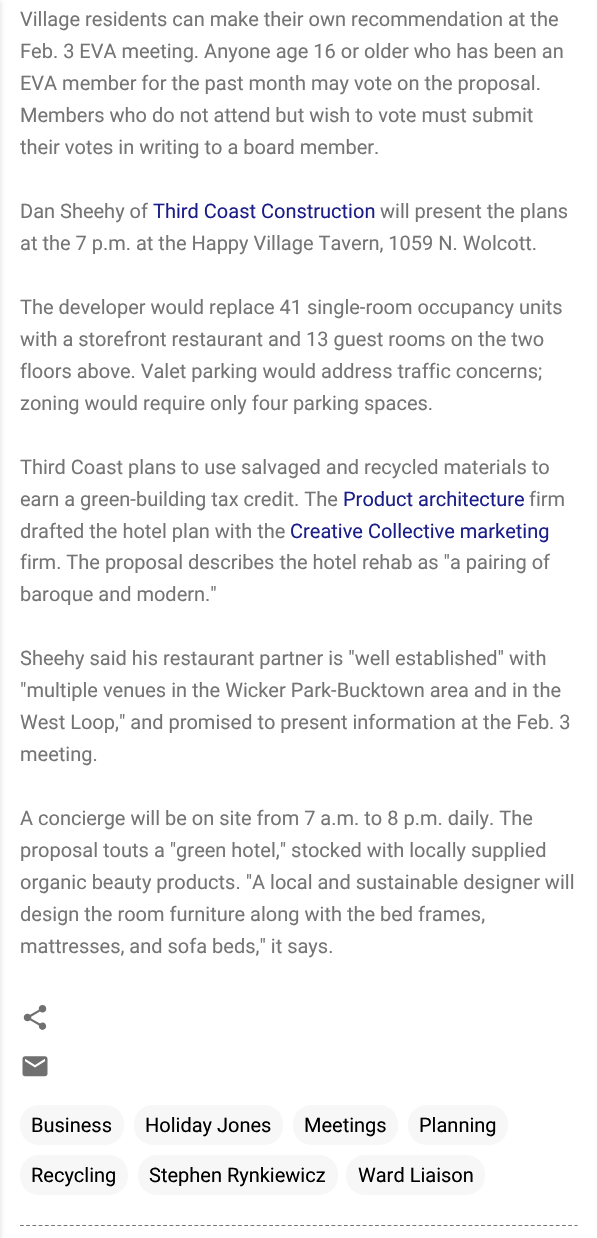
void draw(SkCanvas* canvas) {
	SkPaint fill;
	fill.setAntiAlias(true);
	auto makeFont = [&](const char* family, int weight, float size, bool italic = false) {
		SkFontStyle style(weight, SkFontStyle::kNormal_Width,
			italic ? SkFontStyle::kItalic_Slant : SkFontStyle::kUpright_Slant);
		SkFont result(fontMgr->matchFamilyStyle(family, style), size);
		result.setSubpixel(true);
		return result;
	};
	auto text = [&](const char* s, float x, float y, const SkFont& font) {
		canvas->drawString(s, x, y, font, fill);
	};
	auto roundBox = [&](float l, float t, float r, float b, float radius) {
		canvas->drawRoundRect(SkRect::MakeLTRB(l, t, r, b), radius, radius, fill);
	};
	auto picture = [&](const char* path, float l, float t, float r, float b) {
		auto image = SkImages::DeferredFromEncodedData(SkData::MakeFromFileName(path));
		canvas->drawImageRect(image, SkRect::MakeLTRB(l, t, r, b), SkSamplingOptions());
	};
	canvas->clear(0xFFFFFFFF);
	fill.setColor(0x1A000000);
	fill.setMaskFilter(SkMaskFilter::MakeBlur(kNormal_SkBlurStyle, 2));
	canvas->drawRect(SkRect::MakeLTRB(-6, 1, 1, 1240), fill);
	fill.setMaskFilter(nullptr);
	picture("image0.png", 23, 1005, 47, 1030);
	picture("image1.png", 22, 1056, 48, 1077);
	fill.setColor(0xFFF7F7F7);
	roundBox(20, 1105, 124, 1145, 19);
	roundBox(134, 1105, 283, 1145, 19);
	roundBox(293, 1105, 398, 1145, 19);
	roundBox(408, 1105, 508, 1145, 19);
	roundBox(20, 1155, 128, 1195, 19);
	roundBox(138, 1155, 338, 1195, 19);
	roundBox(346, 1155, 485, 1195, 19);
	fill.setStyle(SkPaint::kStroke_Style);
	fill.setStrokeWidth(1.2f);
	fill.setColor(0xFF757575);
	fill.setPathEffect(SkDashPathEffect::Make({{3.75f, 2.48f}}, 0));
	canvas->drawPath(SkPathBuilder().moveTo(20, 1225.5f).lineTo(577.5f, 1225.5f).detach(), fill);
	fill.setPathEffect(nullptr);
	auto font1 = makeFont("Roboto", 400, 20);
	fill.setStyle(SkPaint::kFill_Style);
	text("Village residents can make their own recommendation at the", 20, 26, font1);
	text("Feb. 3 EVA meeting. Anyone age 16 or older who has been an", 20, 58, font1);
	text("EVA member for the past month may vote on the proposal.", 20, 90, font1);
	text("Members who do not attend but wish to vote must submit", 20, 122, font1);
	text("their votes in writing to a board member.", 20, 154, font1);
	text("Dan Sheehy of", 20, 218, font1);
	fill.setColor(0xFF1B1E88);
	text("Third Coast Construction", 153, 218, font1);
	fill.setColor(0xFF757575);
	text("will present the plans", 380, 218, font1);
	text("at the 7 p.m. at the Happy Village Tavern, 1059 N. Wolcott.", 20, 250, font1);
	text("The developer would replace 41 single-room occupancy units", 20, 314, font1);
	text("with a storefront restaurant and 13 guest rooms on the two", 20, 346, font1);
	text("floors above. Valet parking would address traffic concerns;", 20, 378, font1);
	text("zoning would require only four parking spaces.", 20, 410, font1);
	text("Third Coast plans to use salvaged and recycled materials to", 20, 474, font1);
	text("earn a green-building tax credit. The", 20, 506, font1);
	fill.setColor(0xFF1B1E88);
	text("Product architecture", 343, 506, font1);
	fill.setColor(0xFF757575);
	text("firm", 529, 506, font1);
	text("drafted the hotel plan with the", 20, 538, font1);
	fill.setColor(0xFF1B1E88);
	text("Creative Collective marketing", 290, 538, font1);
	fill.setColor(0xFF757575);
	text("firm. The proposal describes the hotel rehab as \"a pairing of", 20, 569, font1);
	text("baroque and modern.\"", 20, 601, font1);
	text("Sheehy said his restaurant partner is \"well established\" with", 20, 665, font1);
	text("\"multiple venues in the Wicker Park-Bucktown area and in the", 20, 697, font1);
	text("West Loop,\" and promised to present information at the Feb. 3", 20, 729, font1);
	text("meeting.", 20, 761, font1);
	text("A concierge will be on site from 7 a.m. to 8 p.m. daily. The", 20, 825, font1);
	text("proposal touts a \"green hotel,\" stocked with locally supplied", 20, 857, font1);
	text("organic beauty products. \"A local and sustainable designer will", 20, 889, font1);
	text("design the room furniture along with the bed frames,", 20, 921, font1);
	text("mattresses, and sofa beds,\" it says.", 20, 953, font1);
	fill.setColor(0xFF000000);
	text("Business", 31, 1132, font1);
	text("Holiday Jones", 145, 1132, font1);
	text("Meetings", 304, 1132, font1);
	text("Planning", 419, 1132, font1);
	text("Recycling", 31, 1182, font1);
	text("Stephen Rynkiewicz", 149, 1182, font1);
	text("Ward Liaison", 358, 1182, font1);
}
